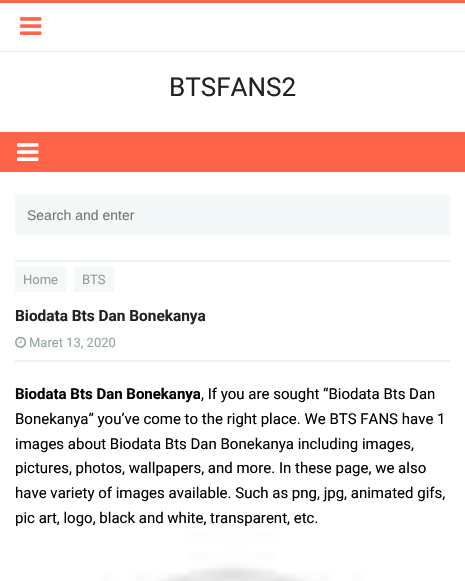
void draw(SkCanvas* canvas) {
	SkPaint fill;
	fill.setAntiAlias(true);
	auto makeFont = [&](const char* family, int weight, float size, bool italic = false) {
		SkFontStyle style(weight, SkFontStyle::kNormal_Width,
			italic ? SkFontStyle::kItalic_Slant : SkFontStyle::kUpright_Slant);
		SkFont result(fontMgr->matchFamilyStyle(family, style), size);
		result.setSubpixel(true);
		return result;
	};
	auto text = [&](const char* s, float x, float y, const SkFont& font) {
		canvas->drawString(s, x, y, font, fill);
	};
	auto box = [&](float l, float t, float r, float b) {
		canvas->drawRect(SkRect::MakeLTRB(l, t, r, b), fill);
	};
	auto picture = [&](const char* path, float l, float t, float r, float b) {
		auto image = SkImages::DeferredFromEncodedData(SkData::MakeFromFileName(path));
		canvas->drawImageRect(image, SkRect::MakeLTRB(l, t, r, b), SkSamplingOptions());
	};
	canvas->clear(0xFFFFFFFF);
	fill.setColor(0xFFFF6348);
	box(0, 0, 465, 3);
	fill.setColor(0xFFEBEBEB);
	box(0, 51, 465, 52);
	picture("image0.png", 20, 17, 42, 35);
	fill.setColor(0xFFFF6348);
	box(0, 132, 465, 172);
	picture("image1.png", 17, 143, 39, 161);
	fill.setColor(0xFFF3F8F9);
	box(15, 195, 450, 235);
	fill.setColor(0xFFECF0F1);
	box(15, 260, 450, 262);
	fill.setColor(0xFFF3F8F9);
	box(15, 267, 66, 292);
	box(74, 267, 114, 292);
	fill.setColor(0xFFECF0F1);
	box(15, 360, 450, 362);
	picture("image2.png", 15, 336, 27, 348);
	picture("image3.png", 15, 531, 450, 581);
	auto font1 = makeFont("Roboto", 400, 26);
	fill.setColor(0xFF222222);
	text("BTSFANS2", 169, 96, font1);
	auto font2 = makeFont("Liberation Sans", 400, 14);
	fill.setColor(0xFF757575);
	text("Search and enter", 27, 220, font2);
	auto font3 = makeFont("Roboto", 400, 13);
	fill.setColor(0xFF999999);
	text("Home", 23, 284, font3);
	text("BTS", 82, 284, font3);
	auto font4 = makeFont("Roboto", 700, 15.4f);
	fill.setColor(0xFF222222);
	text("Biodata Bts Dan Bonekanya", 15, 321, font4);
	fill.setColor(0xFF95A5A6);
	text("Maret 13, 2020", 29, 347, font3);
	auto font5 = makeFont("Roboto", 700, 15);
	fill.setColor(0xFF000000);
	text("Biodata Bts Dan Bonekanya", 15, 399, font5);
	auto font6 = makeFont("Roboto", 400, 15);
	text(", If you are sought “Biodata Bts Dan", 201, 399, font6);
	text("Bonekanya” you’ve come to the right place. We BTS FANS have 1", 15, 424, font6);
	text("images about Biodata Bts Dan Bonekanya including images,", 15, 449, font6);
	text("pictures, photos, wallpapers, and more. In these page, we also", 15, 473, font6);
	text("have variety of images available. Such as png, jpg, animated gifs,", 15, 498, font6);
	text("pic art, logo, black and white, transparent, etc.", 15, 523, font6);
}
